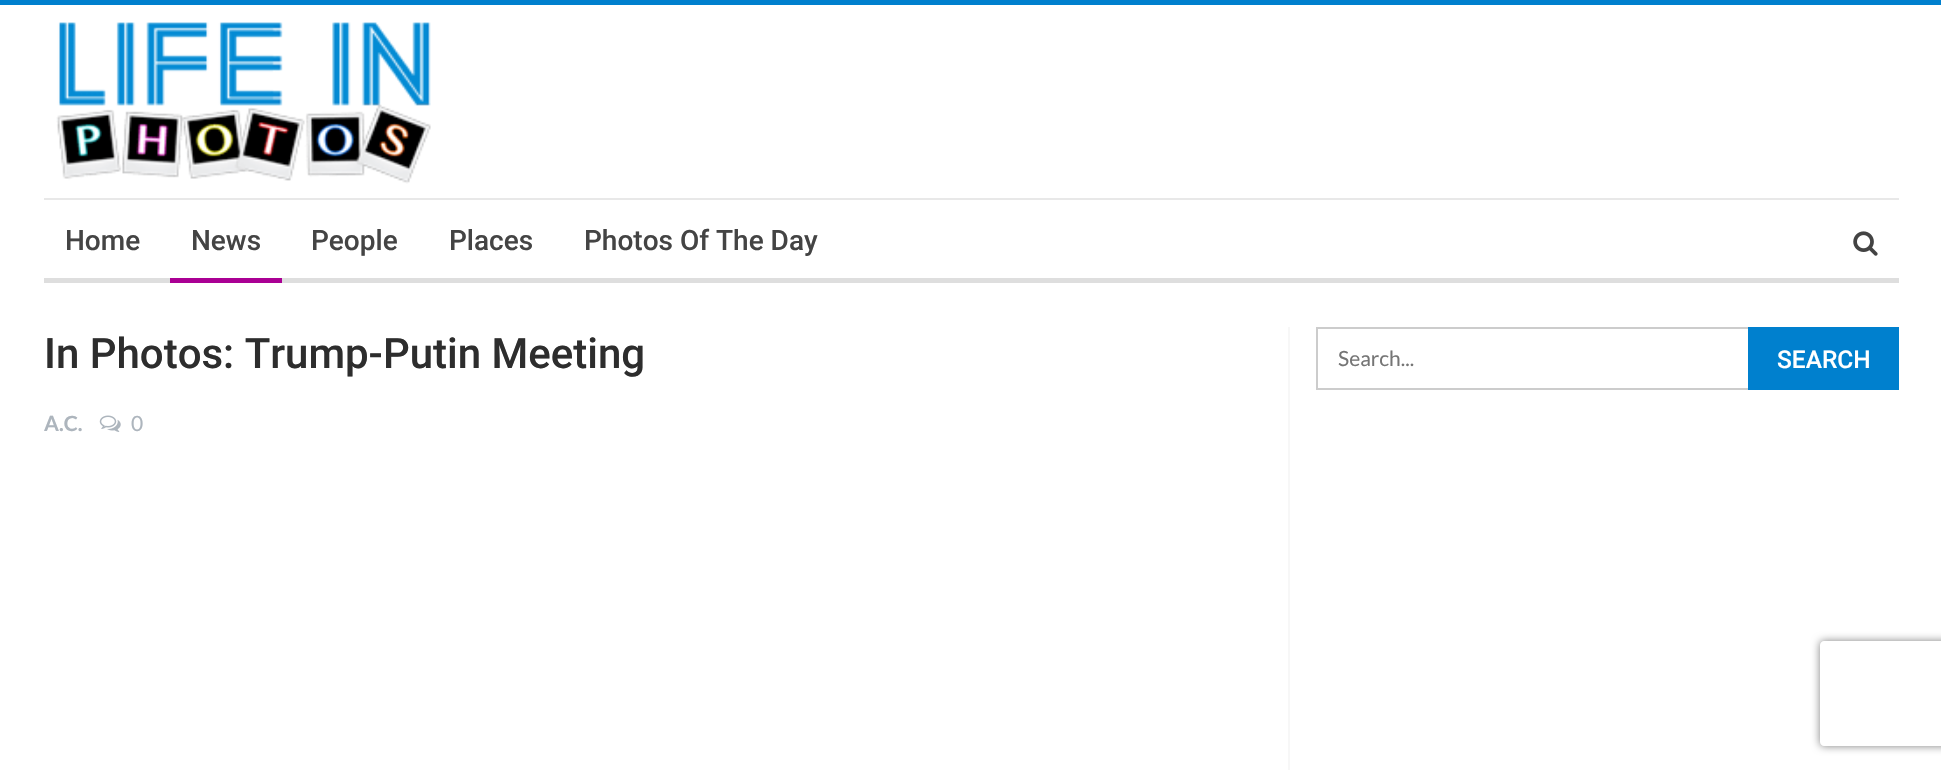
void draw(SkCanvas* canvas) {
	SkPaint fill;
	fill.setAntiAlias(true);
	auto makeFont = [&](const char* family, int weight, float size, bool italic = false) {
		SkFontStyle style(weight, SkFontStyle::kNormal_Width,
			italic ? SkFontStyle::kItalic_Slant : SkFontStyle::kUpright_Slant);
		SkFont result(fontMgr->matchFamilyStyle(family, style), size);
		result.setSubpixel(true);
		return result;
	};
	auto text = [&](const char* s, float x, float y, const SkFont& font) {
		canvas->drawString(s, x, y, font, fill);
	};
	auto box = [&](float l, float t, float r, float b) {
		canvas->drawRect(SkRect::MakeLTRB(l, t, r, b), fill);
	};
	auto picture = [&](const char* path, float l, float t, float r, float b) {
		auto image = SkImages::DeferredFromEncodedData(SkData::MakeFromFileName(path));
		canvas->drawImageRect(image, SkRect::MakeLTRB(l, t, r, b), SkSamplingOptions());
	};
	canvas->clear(0xFFFFFFFF);
	fill.setColor(0xFF0080CE);
	box(0, 0, 1941, 5);
	picture("image0.png", 56, 22, 431, 184);
	fill.setColor(0xFFE8E8E8);
	box(44, 198, 1899, 200);
	fill.setColor(0xFFDEDEDE);
	box(44, 278, 1899, 283);
	fill.setColor(0xFFAA0094);
	box(170, 278, 282, 283);
	picture("image1.png", 1853, 231, 1878, 256);
	picture("image2.png", 99, 415, 121, 432);
	fill.setColor(0xFFF7F7F7);
	box(1288, 327, 1290, 770);
	fill.setStyle(SkPaint::kStroke_Style);
	fill.setStrokeWidth(2);
	fill.setColor(0xFFCCCCCC);
	canvas->drawRect(SkRect::MakeLTRB(1317, 328, 1898, 389), fill);
	fill.setStyle(SkPaint::kFill_Style);
	fill.setColor(0xFF0080CE);
	box(1748, 327, 1899, 390);
	canvas->save();
	canvas->clipPath(SkPathBuilder(SkPathFillType::kEvenOdd).moveTo(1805, 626).lineTo(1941, 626).lineTo(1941, 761).lineTo(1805, 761).close().moveTo(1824, 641).lineTo(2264, 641).cubicTo(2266, 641, 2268, 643, 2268, 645).lineTo(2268, 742).cubicTo(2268, 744, 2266, 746, 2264, 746).lineTo(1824, 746).cubicTo(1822, 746, 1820, 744, 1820, 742).lineTo(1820, 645).cubicTo(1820, 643, 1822, 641, 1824, 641).close().detach(), true);
	fill.setColor(0xFF808080);
	fill.setMaskFilter(SkMaskFilter::MakeBlur(kNormal_SkBlurStyle, 4.5f));
	canvas->drawRoundRect(SkRect::MakeLTRB(1820, 641, 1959, 746), 4, 4, fill);
	fill.setMaskFilter(nullptr);
	canvas->restore();
	auto font1 = makeFont("Roboto", 500, 28);
	fill.setColor(0xFF444444);
	text("Home", 65, 250, font1);
	text("News", 191, 250, font1);
	text("People", 311, 250, font1);
	text("Places", 449, 250, font1);
	text("Photos Of The Day", 584, 250, font1);
	auto font2 = makeFont("Roboto", 500, 42);
	fill.setColor(0xFF2D2D2D);
	text("In Photos: Trump-Putin Meeting", 44, 368, font2);
	auto font3 = makeFont("Lato", 700, 21);
	fill.setColor(0xFFADB5BD);
	text("A.C.", 44, 431, font3);
	auto font4 = makeFont("Lato", 400, 21);
	text("0", 131, 431, font4);
	fill.setColor(0xFF757575);
	text("Search...", 1338, 366, font4);
	auto font5 = makeFont("Roboto", 500, 24.5f);
	fill.setColor(0xFFFFFFFF);
	text("SEARCH", 1777, 368, font5);
}
